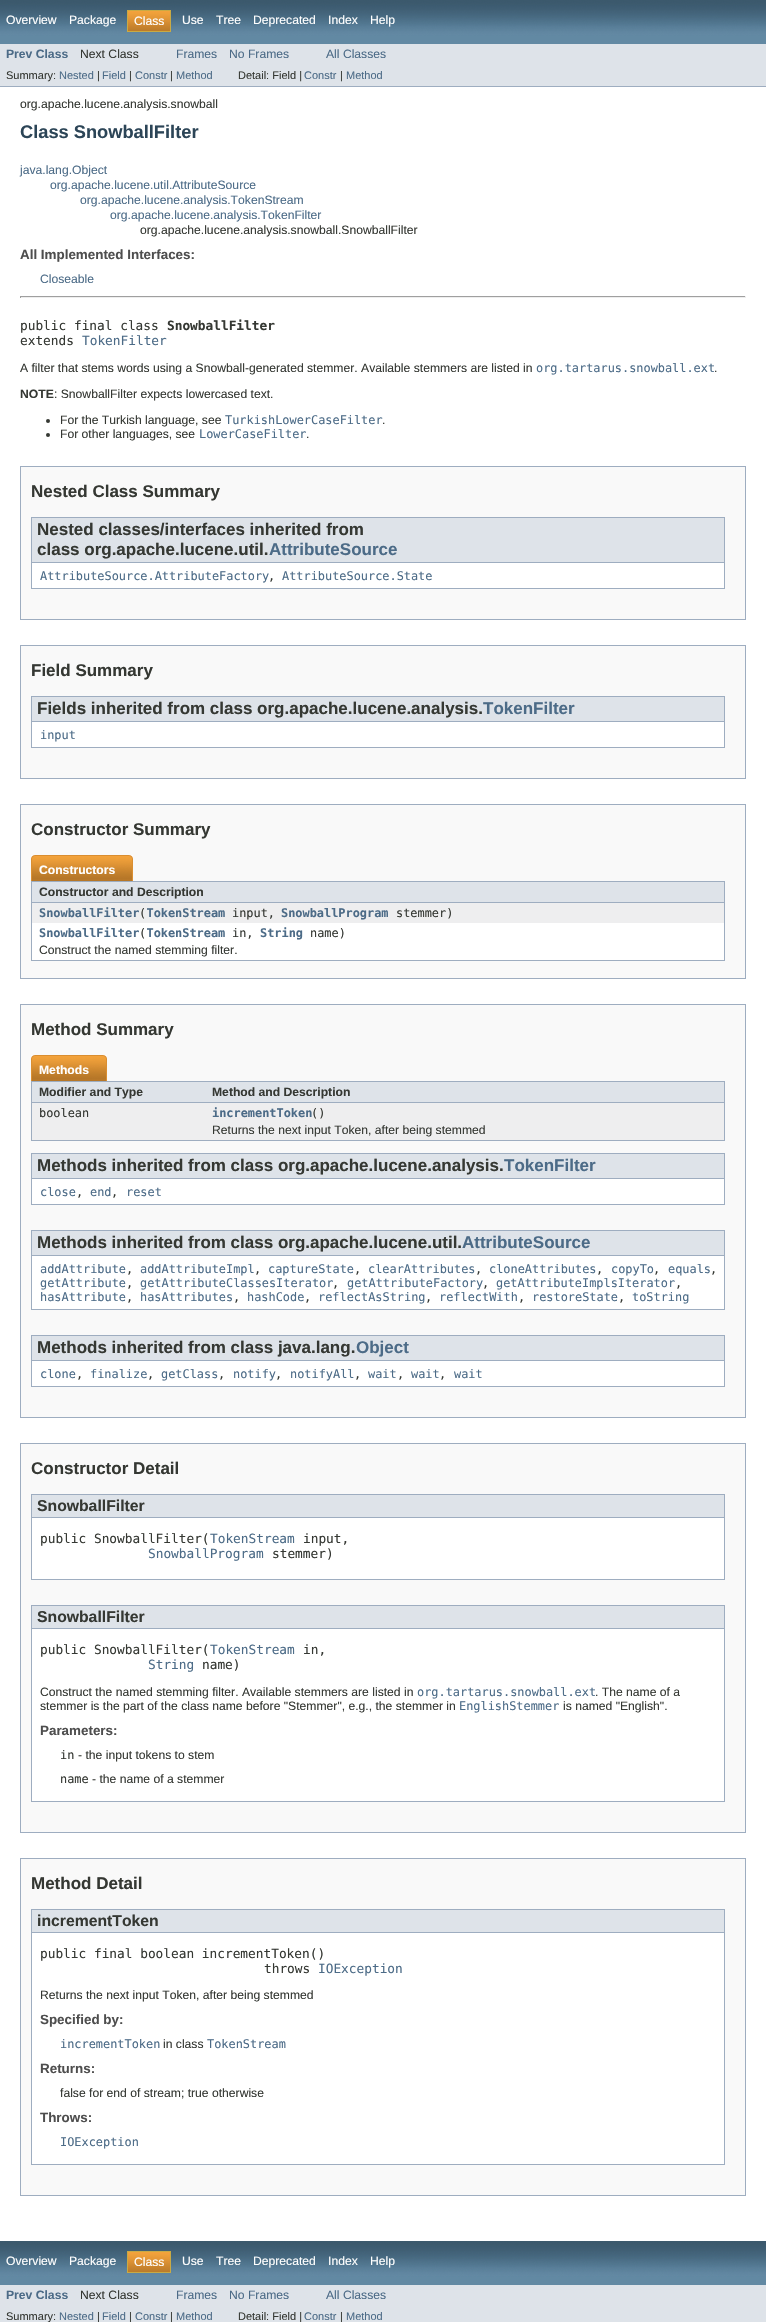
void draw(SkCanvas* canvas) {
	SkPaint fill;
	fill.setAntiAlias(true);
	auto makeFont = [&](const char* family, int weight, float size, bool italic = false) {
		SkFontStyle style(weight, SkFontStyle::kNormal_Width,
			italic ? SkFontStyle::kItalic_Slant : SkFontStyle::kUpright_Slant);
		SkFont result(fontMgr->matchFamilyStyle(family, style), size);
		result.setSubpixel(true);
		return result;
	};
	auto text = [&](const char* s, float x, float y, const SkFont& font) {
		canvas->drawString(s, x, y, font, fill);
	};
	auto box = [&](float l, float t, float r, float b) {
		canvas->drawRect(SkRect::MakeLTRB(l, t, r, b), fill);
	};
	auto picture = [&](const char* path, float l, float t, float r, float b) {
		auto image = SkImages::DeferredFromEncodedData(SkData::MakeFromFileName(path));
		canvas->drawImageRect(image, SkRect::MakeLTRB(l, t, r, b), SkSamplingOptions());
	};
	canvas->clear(0xFFFFFFFF);
	picture("image0.png", 0, 0, 766, 44);
	picture("image1.png", 128, 11, 170, 31);
	fill.setStyle(SkPaint::kStroke_Style);
	fill.setStrokeWidth(1);
	fill.setColor(0xFFC9AA44);
	canvas->drawRect(SkRect::MakeLTRB(127.5f, 10.5f, 170.5f, 31.5f), fill);
	fill.setStyle(SkPaint::kFill_Style);
	fill.setColor(0xFFDEE3E9);
	box(0, 44, 766, 86);
	fill.setColor(0xFF9EADC0);
	box(0, 86, 766, 87);
	fill.setColor(0xFF9F9F9F);
	box(20, 296, 746, 297);
	fill.setColor(0xFFEEEEEE);
	box(745, 296, 746, 298);
	box(20, 297, 746, 298);
	fill.setColor(0xFF9F9F9F);
	box(20, 296, 21, 298);
	fill.setColor(0xFF353833);
	canvas->drawCircle(48, 421, 2, fill);
	canvas->drawCircle(48, 435, 2, fill);
	fill.setColor(0xFFF9F9F9);
	canvas->drawRect(SkRect::MakeLTRB(20.5f, 466.5f, 745.5f, 619.5f), fill);
	fill.setStyle(SkPaint::kStroke_Style);
	fill.setColor(0xFF9EADC0);
	canvas->drawRect(SkRect::MakeLTRB(20.5f, 466.5f, 745.5f, 619.5f), fill);
	fill.setStyle(SkPaint::kFill_Style);
	fill.setColor(0xFFFFFFFF);
	box(32, 563, 724, 588);
	fill.setColor(0xFF9EADC0);
	box(724, 517, 725, 589);
	box(31, 588, 725, 589);
	box(31, 517, 32, 589);
	fill.setColor(0xFFDEE3E9);
	box(32, 518, 724, 562);
	fill.setColor(0xFF9EADC0);
	box(32, 517, 724, 518);
	box(32, 562, 724, 563);
	fill.setColor(0xFFF9F9F9);
	canvas->drawRect(SkRect::MakeLTRB(20.5f, 645.5f, 745.5f, 778.5f), fill);
	fill.setStyle(SkPaint::kStroke_Style);
	fill.setColor(0xFF9EADC0);
	canvas->drawRect(SkRect::MakeLTRB(20.5f, 645.5f, 745.5f, 778.5f), fill);
	fill.setStyle(SkPaint::kFill_Style);
	fill.setColor(0xFFFFFFFF);
	box(32, 722, 724, 747);
	fill.setColor(0xFF9EADC0);
	box(724, 696, 725, 748);
	box(31, 747, 725, 748);
	box(31, 696, 32, 748);
	fill.setColor(0xFFDEE3E9);
	box(32, 697, 724, 721);
	fill.setColor(0xFF9EADC0);
	box(32, 696, 724, 697);
	box(32, 721, 724, 722);
	fill.setColor(0xFFF9F9F9);
	canvas->drawRect(SkRect::MakeLTRB(20.5f, 804.5f, 745.5f, 978.5f), fill);
	fill.setStyle(SkPaint::kStroke_Style);
	fill.setColor(0xFF9EADC0);
	canvas->drawRect(SkRect::MakeLTRB(20.5f, 804.5f, 745.5f, 978.5f), fill);
	fill.setStyle(SkPaint::kFill_Style);
	box(31, 960, 725, 961);
	picture("image2.png", 31, 855, 115, 881);
	picture("image3.png", 115, 855, 133, 881);
	fill.setColor(0xFFDEE3E9);
	canvas->drawRect(SkRect::MakeLTRB(31.5f, 881.5f, 724.5f, 902.5f), fill);
	fill.setStyle(SkPaint::kStroke_Style);
	fill.setColor(0xFF9EADC0);
	canvas->drawRect(SkRect::MakeLTRB(31.5f, 881.5f, 724.5f, 902.5f), fill);
	fill.setStyle(SkPaint::kFill_Style);
	fill.setColor(0xFFEEEEEF);
	box(32, 903, 724, 923);
	fill.setColor(0xFF9EADC0);
	box(724, 903, 725, 960);
	box(31, 903, 32, 960);
	fill.setColor(0xFFFFFFFF);
	box(32, 923, 724, 960);
	fill.setColor(0xFFF9F9F9);
	canvas->drawRect(SkRect::MakeLTRB(20.5f, 1004.5f, 745.5f, 1417.5f), fill);
	fill.setStyle(SkPaint::kStroke_Style);
	fill.setColor(0xFF9EADC0);
	canvas->drawRect(SkRect::MakeLTRB(20.5f, 1004.5f, 745.5f, 1417.5f), fill);
	fill.setStyle(SkPaint::kFill_Style);
	box(31, 1140, 725, 1141);
	picture("image4.png", 31, 1055, 89, 1081);
	picture("image3.png", 89, 1055, 107, 1081);
	fill.setColor(0xFFDEE3E9);
	box(32, 1082, 724, 1102);
	fill.setColor(0xFF9EADC0);
	box(31, 1081, 725, 1082);
	box(31, 1102, 205, 1103);
	box(31, 1081, 32, 1140);
	box(724, 1081, 725, 1140);
	box(205, 1102, 725, 1103);
	fill.setColor(0xFFEEEEEF);
	box(32, 1103, 724, 1140);
	fill.setColor(0xFFFFFFFF);
	box(32, 1179, 724, 1204);
	fill.setColor(0xFF9EADC0);
	box(724, 1153, 725, 1205);
	box(31, 1204, 725, 1205);
	box(31, 1153, 32, 1205);
	fill.setColor(0xFFDEE3E9);
	box(32, 1154, 724, 1178);
	fill.setColor(0xFF9EADC0);
	box(32, 1153, 724, 1154);
	box(32, 1178, 724, 1179);
	fill.setColor(0xFFFFFFFF);
	box(32, 1256, 724, 1309);
	fill.setColor(0xFF9EADC0);
	box(724, 1230, 725, 1310);
	box(31, 1309, 725, 1310);
	box(31, 1230, 32, 1310);
	fill.setColor(0xFFDEE3E9);
	box(32, 1231, 724, 1255);
	fill.setColor(0xFF9EADC0);
	box(32, 1230, 724, 1231);
	box(32, 1255, 724, 1256);
	fill.setColor(0xFFFFFFFF);
	box(32, 1361, 724, 1386);
	fill.setColor(0xFF9EADC0);
	box(724, 1335, 725, 1387);
	box(31, 1386, 725, 1387);
	box(31, 1335, 32, 1387);
	fill.setColor(0xFFDEE3E9);
	box(32, 1336, 724, 1360);
	fill.setColor(0xFF9EADC0);
	box(32, 1335, 724, 1336);
	box(32, 1360, 724, 1361);
	fill.setColor(0xFFF9F9F9);
	canvas->drawRect(SkRect::MakeLTRB(20.5f, 1443.5f, 745.5f, 1832.5f), fill);
	fill.setStyle(SkPaint::kStroke_Style);
	fill.setColor(0xFF9EADC0);
	canvas->drawRect(SkRect::MakeLTRB(20.5f, 1443.5f, 745.5f, 1832.5f), fill);
	fill.setStyle(SkPaint::kFill_Style);
	fill.setColor(0xFFFFFFFF);
	box(32, 1518, 724, 1579);
	fill.setColor(0xFF9EADC0);
	box(724, 1494, 725, 1580);
	box(31, 1579, 725, 1580);
	box(31, 1494, 32, 1580);
	fill.setColor(0xFFDEE3E9);
	box(32, 1495, 724, 1517);
	fill.setColor(0xFF9EADC0);
	box(32, 1494, 724, 1495);
	box(32, 1517, 724, 1518);
	fill.setColor(0xFFFFFFFF);
	box(32, 1629, 724, 1801);
	fill.setColor(0xFF9EADC0);
	box(724, 1605, 725, 1802);
	box(31, 1801, 725, 1802);
	box(31, 1605, 32, 1802);
	fill.setColor(0xFFDEE3E9);
	box(32, 1606, 724, 1628);
	fill.setColor(0xFF9EADC0);
	box(32, 1605, 724, 1606);
	box(32, 1628, 724, 1629);
	fill.setColor(0xFFF9F9F9);
	canvas->drawRect(SkRect::MakeLTRB(20.5f, 1858.5f, 745.5f, 2195.5f), fill);
	fill.setStyle(SkPaint::kStroke_Style);
	fill.setColor(0xFF9EADC0);
	canvas->drawRect(SkRect::MakeLTRB(20.5f, 1858.5f, 745.5f, 2195.5f), fill);
	fill.setStyle(SkPaint::kFill_Style);
	fill.setColor(0xFFFFFFFF);
	box(32, 1933, 724, 2164);
	fill.setColor(0xFF9EADC0);
	box(724, 1909, 725, 2165);
	box(31, 2164, 725, 2165);
	box(31, 1909, 32, 2165);
	fill.setColor(0xFFDEE3E9);
	box(32, 1910, 724, 1932);
	fill.setColor(0xFF9EADC0);
	box(32, 1909, 724, 1910);
	box(32, 1932, 724, 1933);
	picture("image0.png", 0, 2241, 766, 2285);
	picture("image1.png", 128, 2252, 170, 2272);
	fill.setStyle(SkPaint::kStroke_Style);
	fill.setColor(0xFFC9AA44);
	canvas->drawRect(SkRect::MakeLTRB(127.5f, 2251.5f, 170.5f, 2272.5f), fill);
	fill.setStyle(SkPaint::kFill_Style);
	fill.setColor(0xFFDEE3E9);
	box(0, 2285, 766, 2322);
	auto font1 = makeFont("Liberation Sans", 400, 12.15f);
	fill.setColor(0xFFFFFFFF);
	text("Overview", 6, 24, font1);
	text("Package", 69, 24, font1);
	text("Class", 134, 25, font1);
	text("Use", 182, 24, font1);
	text("Tree", 216, 24, font1);
	text("Deprecated", 253, 24, font1);
	text("Index", 328, 24, font1);
	text("Help", 370, 24, font1);
	auto font2 = makeFont("Liberation Sans", 700, 12.15f);
	fill.setColor(0xFF4C6B87);
	text("Prev Class", 6, 58, font2);
	fill.setColor(0xFF353833);
	text("Next Class", 80, 58, font1);
	fill.setColor(0xFF4C6B87);
	text("Frames", 176, 58, font1);
	text("No Frames", 229, 58, font1);
	text("All Classes", 326, 58, font1);
	auto font3 = makeFont("Liberation Sans", 400, 11);
	fill.setColor(0xFF353833);
	text("Summary:", 6, 79, font3);
	fill.setColor(0xFF4C6B87);
	text("Nested", 59, 79, font3);
	fill.setColor(0xFF353833);
	text("|", 97, 79, font3);
	fill.setColor(0xFF4C6B87);
	text("Field", 102, 79, font3);
	fill.setColor(0xFF353833);
	text("|", 129, 79, font3);
	fill.setColor(0xFF4C6B87);
	text("Constr", 135, 79, font3);
	fill.setColor(0xFF353833);
	text("|", 170, 79, font3);
	fill.setColor(0xFF4C6B87);
	text("Method", 176, 79, font3);
	fill.setColor(0xFF353833);
	text("Detail: Field |", 238, 79, font3);
	fill.setColor(0xFF4C6B87);
	text("Constr", 304, 79, font3);
	fill.setColor(0xFF353833);
	text("|", 340, 79, font3);
	fill.setColor(0xFF4C6B87);
	text("Method", 346, 79, font3);
	fill.setColor(0xFF353833);
	text("org.apache.lucene.analysis.snowball", 20, 108, font1);
	auto font4 = makeFont("Liberation Sans", 700, 18.25f);
	fill.setColor(0xFF2C4557);
	text("Class SnowballFilter", 20, 138, font4);
	fill.setColor(0xFF4C6B87);
	text("java.lang.Object", 20, 174, font1);
	text("org.apache.lucene.util.AttributeSource", 50, 189, font1);
	text("org.apache.lucene.analysis.TokenStream", 80, 204, font1);
	text("org.apache.lucene.analysis.TokenFilter", 110, 219, font1);
	fill.setColor(0xFF353833);
	text("org.apache.lucene.analysis.snowball.SnowballFilter", 140, 234, font1);
	auto font5 = makeFont("Liberation Sans", 700, 13.4f);
	fill.setColor(0xFF4E4E4E);
	text("All Implemented Interfaces:", 20, 259, font5);
	fill.setColor(0xFF4C6B87);
	text("Closeable", 40, 283, font1);
	auto font6 = makeFont("DejaVu Sans Mono", 400, 12.8f);
	fill.setColor(0xFF353833);
	text("public final class", 20, 330, font6);
	auto font7 = makeFont("DejaVu Sans Mono", 700, 12.8f);
	text("SnowballFilter", 167, 330, font7);
	text("extends", 20, 345, font6);
	fill.setColor(0xFF4C6B87);
	text("TokenFilter", 82, 345, font6);
	fill.setColor(0xFF353833);
	text("A filter that stems words using a Snowball-generated stemmer. Available stemmers are listed in", 20, 372, font1);
	auto font8 = makeFont("DejaVu Sans Mono", 400, 11.9f);
	fill.setColor(0xFF4C6B87);
	text("org.tartarus.snowball.ext", 536, 372, font8);
	fill.setColor(0xFF353833);
	text(".", 714, 372, font1);
	text("NOTE", 20, 398, font2);
	text(": SnowballFilter expects lowercased text.", 54, 398, font1);
	text("For the Turkish language, see", 60, 424, font1);
	fill.setColor(0xFF4C6B87);
	text("TurkishLowerCaseFilter", 225, 424, font8);
	fill.setColor(0xFF353833);
	text(".", 382, 424, font1);
	text("For other languages, see", 60, 438, font1);
	fill.setColor(0xFF4C6B87);
	text("LowerCaseFilter", 199, 438, font8);
	fill.setColor(0xFF353833);
	text(".", 306, 438, font1);
	auto font9 = makeFont("Liberation Sans", 700, 17);
	text("Nested Class Summary", 31, 497, font9);
	text("Nested classes/interfaces inherited from", 37, 535, font9);
	text("class org.apache.lucene.util.", 37, 555, font9);
	fill.setColor(0xFF4C6B87);
	text("AttributeSource", 269, 555, font9);
	text("AttributeSource.AttributeFactory", 40, 580, font8);
	fill.setColor(0xFF353833);
	text(",", 268, 580, font8);
	fill.setColor(0xFF4C6B87);
	text("AttributeSource.State", 282, 580, font8);
	fill.setColor(0xFF353833);
	text("Field Summary", 31, 676, font9);
	text("Fields inherited from class org.apache.lucene.analysis.", 37, 714, font9);
	fill.setColor(0xFF4C6B87);
	text("TokenFilter", 483, 714, font9);
	text("input", 40, 739, font8);
	fill.setColor(0xFF353833);
	text("Constructor Summary", 31, 835, font9);
	fill.setColor(0xFFFFFFFF);
	text("Constructors", 39, 874, font2);
	fill.setColor(0xFF353833);
	text("Constructor and Description", 39, 896, font2);
	auto font10 = makeFont("DejaVu Sans Mono", 700, 11.9f);
	fill.setColor(0xFF4C6B87);
	text("SnowballFilter TokenStream", 39, 917, font10);
	fill.setColor(0xFF353833);
	text("(", 139, 917, font8);
	text("input,", 232, 917, font8);
	fill.setColor(0xFF4C6B87);
	text("SnowballProgram", 281, 917, font10);
	fill.setColor(0xFF353833);
	text("stemmer)", 396, 917, font8);
	fill.setColor(0xFF4C6B87);
	text("SnowballFilter TokenStream", 39, 937, font10);
	text("String", 260, 937, font10);
	fill.setColor(0xFF353833);
	text("(", 139, 937, font8);
	text("in,", 232, 937, font8);
	text("name)", 310, 937, font8);
	text("Construct the named stemming filter.", 39, 954, font1);
	text("Method Summary", 31, 1035, font9);
	fill.setColor(0xFFFFFFFF);
	text("Methods", 39, 1074, font2);
	fill.setColor(0xFF353833);
	text("Modifier and Type", 39, 1096, font2);
	text("Method and Description", 212, 1096, font2);
	text("boolean", 39, 1117, font8);
	fill.setColor(0xFF4C6B87);
	text("incrementToken", 212, 1117, font10);
	fill.setColor(0xFF353833);
	text("()", 311, 1117, font8);
	text("Returns the next input Token, after being stemmed", 212, 1134, font1);
	text("Methods inherited from class org.apache.lucene.analysis.", 37, 1171, font9);
	fill.setColor(0xFF4C6B87);
	text("TokenFilter", 504, 1171, font9);
	text("close", 40, 1196, font8);
	fill.setColor(0xFF353833);
	text(",", 76, 1196, font8);
	fill.setColor(0xFF4C6B87);
	text("end", 90, 1196, font8);
	fill.setColor(0xFF353833);
	text(",", 111, 1196, font8);
	fill.setColor(0xFF4C6B87);
	text("reset", 126, 1196, font8);
	fill.setColor(0xFF353833);
	text("Methods inherited from class org.apache.lucene.util.", 37, 1248, font9);
	fill.setColor(0xFF4C6B87);
	text("AttributeSource", 462, 1248, font9);
	text("addAttribute", 40, 1273, font8);
	fill.setColor(0xFF353833);
	text(",", 126, 1273, font8);
	fill.setColor(0xFF4C6B87);
	text("addAttributeImpl", 140, 1273, font8);
	fill.setColor(0xFF353833);
	text(",", 254, 1273, font8);
	fill.setColor(0xFF4C6B87);
	text("captureState", 268, 1273, font8);
	fill.setColor(0xFF353833);
	text(",", 354, 1273, font8);
	fill.setColor(0xFF4C6B87);
	text("clearAttributes", 368, 1273, font8);
	fill.setColor(0xFF353833);
	text(",", 475, 1273, font8);
	fill.setColor(0xFF4C6B87);
	text("cloneAttributes", 489, 1273, font8);
	fill.setColor(0xFF353833);
	text(",", 596, 1273, font8);
	fill.setColor(0xFF4C6B87);
	text("copyTo", 611, 1273, font8);
	fill.setColor(0xFF353833);
	text(",", 653, 1273, font8);
	fill.setColor(0xFF4C6B87);
	text("equals", 668, 1273, font8);
	fill.setColor(0xFF353833);
	text(",", 710, 1273, font8);
	fill.setColor(0xFF4C6B87);
	text("getAttribute", 40, 1287, font8);
	fill.setColor(0xFF353833);
	text(",", 126, 1287, font8);
	fill.setColor(0xFF4C6B87);
	text("getAttributeClassesIterator", 140, 1287, font8);
	fill.setColor(0xFF353833);
	text(",", 332, 1287, font8);
	fill.setColor(0xFF4C6B87);
	text("getAttributeFactory", 347, 1287, font8);
	fill.setColor(0xFF353833);
	text(",", 482, 1287, font8);
	fill.setColor(0xFF4C6B87);
	text("getAttributeImplsIterator", 496, 1287, font8);
	fill.setColor(0xFF353833);
	text(",", 675, 1287, font8);
	fill.setColor(0xFF4C6B87);
	text("hasAttribute", 40, 1301, font8);
	fill.setColor(0xFF353833);
	text(",", 126, 1301, font8);
	fill.setColor(0xFF4C6B87);
	text("hasAttributes", 140, 1301, font8);
	fill.setColor(0xFF353833);
	text(",", 233, 1301, font8);
	fill.setColor(0xFF4C6B87);
	text("hashCode", 247, 1301, font8);
	fill.setColor(0xFF353833);
	text(",", 304, 1301, font8);
	fill.setColor(0xFF4C6B87);
	text("reflectAsString", 318, 1301, font8);
	fill.setColor(0xFF353833);
	text(",", 425, 1301, font8);
	fill.setColor(0xFF4C6B87);
	text("reflectWith", 439, 1301, font8);
	fill.setColor(0xFF353833);
	text(",", 518, 1301, font8);
	fill.setColor(0xFF4C6B87);
	text("restoreState", 532, 1301, font8);
	fill.setColor(0xFF353833);
	text(",", 618, 1301, font8);
	fill.setColor(0xFF4C6B87);
	text("toString", 632, 1301, font8);
	fill.setColor(0xFF353833);
	text("Methods inherited from class java.lang.", 37, 1353, font9);
	fill.setColor(0xFF4C6B87);
	text("Object", 356, 1353, font9);
	text("clone", 40, 1378, font8);
	fill.setColor(0xFF353833);
	text(",", 76, 1378, font8);
	fill.setColor(0xFF4C6B87);
	text("finalize", 90, 1378, font8);
	fill.setColor(0xFF353833);
	text(",", 147, 1378, font8);
	fill.setColor(0xFF4C6B87);
	text("getClass", 161, 1378, font8);
	fill.setColor(0xFF353833);
	text(",", 218, 1378, font8);
	fill.setColor(0xFF4C6B87);
	text("notify", 233, 1378, font8);
	fill.setColor(0xFF353833);
	text(",", 275, 1378, font8);
	fill.setColor(0xFF4C6B87);
	text("notifyAll", 290, 1378, font8);
	fill.setColor(0xFF353833);
	text(",", 354, 1378, font8);
	fill.setColor(0xFF4C6B87);
	text("wait", 368, 1378, font8);
	fill.setColor(0xFF353833);
	text(",", 397, 1378, font8);
	fill.setColor(0xFF4C6B87);
	text("wait", 411, 1378, font8);
	fill.setColor(0xFF353833);
	text(",", 439, 1378, font8);
	fill.setColor(0xFF4C6B87);
	text("wait", 454, 1378, font8);
	fill.setColor(0xFF353833);
	text("Constructor Detail", 31, 1474, font9);
	auto font11 = makeFont("Liberation Sans", 700, 15.75f);
	text("SnowballFilter", 37, 1511, font11);
	text("public SnowballFilter(", 40, 1543, font6);
	fill.setColor(0xFF4C6B87);
	text("TokenStream", 210, 1543, font6);
	fill.setColor(0xFF353833);
	text("input,", 303, 1543, font6);
	fill.setColor(0xFF4C6B87);
	text("SnowballProgram", 148, 1558, font6);
	fill.setColor(0xFF353833);
	text("stemmer)", 272, 1558, font6);
	text("SnowballFilter", 37, 1622, font11);
	text("public SnowballFilter(", 40, 1654, font6);
	fill.setColor(0xFF4C6B87);
	text("TokenStream", 210, 1654, font6);
	fill.setColor(0xFF353833);
	text("in,", 303, 1654, font6);
	fill.setColor(0xFF4C6B87);
	text("String", 148, 1669, font6);
	fill.setColor(0xFF353833);
	text("name)", 202, 1669, font6);
	text("Construct the named stemming filter. Available stemmers are listed in", 40, 1696, font1);
	fill.setColor(0xFF4C6B87);
	text("org.tartarus.snowball.ext", 417, 1696, font8);
	fill.setColor(0xFF353833);
	text(". The name of a", 595, 1696, font1);
	text("stemmer is the part of the class name before \"Stemmer\", e.g., the stemmer in", 40, 1710, font1);
	fill.setColor(0xFF4C6B87);
	text("EnglishStemmer", 459, 1710, font8);
	fill.setColor(0xFF353833);
	text("is named \"English\".", 563, 1710, font1);
	fill.setColor(0xFF4E4E4E);
	text("Parameters:", 40, 1735, font5);
	fill.setColor(0xFF353833);
	text("in", 60, 1759, font8);
	text("- the input tokens to stem", 78, 1759, font1);
	text("name", 60, 1783, font8);
	text("- the name of a stemmer", 92, 1783, font1);
	text("Method Detail", 31, 1889, font9);
	text("incrementToken", 37, 1926, font11);
	text("public final boolean incrementToken()", 40, 1958, font6);
	text("throws", 264, 1973, font6);
	fill.setColor(0xFF4C6B87);
	text("IOException", 318, 1973, font6);
	fill.setColor(0xFF353833);
	text("Returns the next input Token, after being stemmed", 40, 1999, font1);
	fill.setColor(0xFF4E4E4E);
	text("Specified by:", 40, 2024, font5);
	fill.setColor(0xFF4C6B87);
	text("incrementToken", 60, 2048, font8);
	fill.setColor(0xFF353833);
	text("in class", 163, 2048, font1);
	fill.setColor(0xFF4C6B87);
	text("TokenStream", 207, 2048, font8);
	fill.setColor(0xFF4E4E4E);
	text("Returns:", 40, 2073, font5);
	fill.setColor(0xFF353833);
	text("false for end of stream; true otherwise", 60, 2097, font1);
	fill.setColor(0xFF4E4E4E);
	text("Throws:", 40, 2122, font5);
	fill.setColor(0xFF4C6B87);
	text("IOException", 60, 2146, font8);
	fill.setColor(0xFFFFFFFF);
	text("Overview", 6, 2265, font1);
	text("Package", 69, 2265, font1);
	text("Class", 134, 2266, font1);
	text("Use", 182, 2265, font1);
	text("Tree", 216, 2265, font1);
	text("Deprecated", 253, 2265, font1);
	text("Index", 328, 2265, font1);
	text("Help", 370, 2265, font1);
	fill.setColor(0xFF4C6B87);
	text("Prev Class", 6, 2299, font2);
	fill.setColor(0xFF353833);
	text("Next Class", 80, 2299, font1);
	fill.setColor(0xFF4C6B87);
	text("Frames", 176, 2299, font1);
	text("No Frames", 229, 2299, font1);
	text("All Classes", 326, 2299, font1);
	fill.setColor(0xFF353833);
	text("Summary:", 6, 2320, font3);
	fill.setColor(0xFF4C6B87);
	text("Nested", 59, 2320, font3);
	fill.setColor(0xFF353833);
	text("|", 97, 2320, font3);
	fill.setColor(0xFF4C6B87);
	text("Field", 102, 2320, font3);
	fill.setColor(0xFF353833);
	text("|", 129, 2320, font3);
	fill.setColor(0xFF4C6B87);
	text("Constr", 135, 2320, font3);
	fill.setColor(0xFF353833);
	text("|", 170, 2320, font3);
	fill.setColor(0xFF4C6B87);
	text("Method", 176, 2320, font3);
	fill.setColor(0xFF353833);
	text("Detail: Field |", 238, 2320, font3);
	fill.setColor(0xFF4C6B87);
	text("Constr", 304, 2320, font3);
	fill.setColor(0xFF353833);
	text("|", 340, 2320, font3);
	fill.setColor(0xFF4C6B87);
	text("Method", 346, 2320, font3);
}
